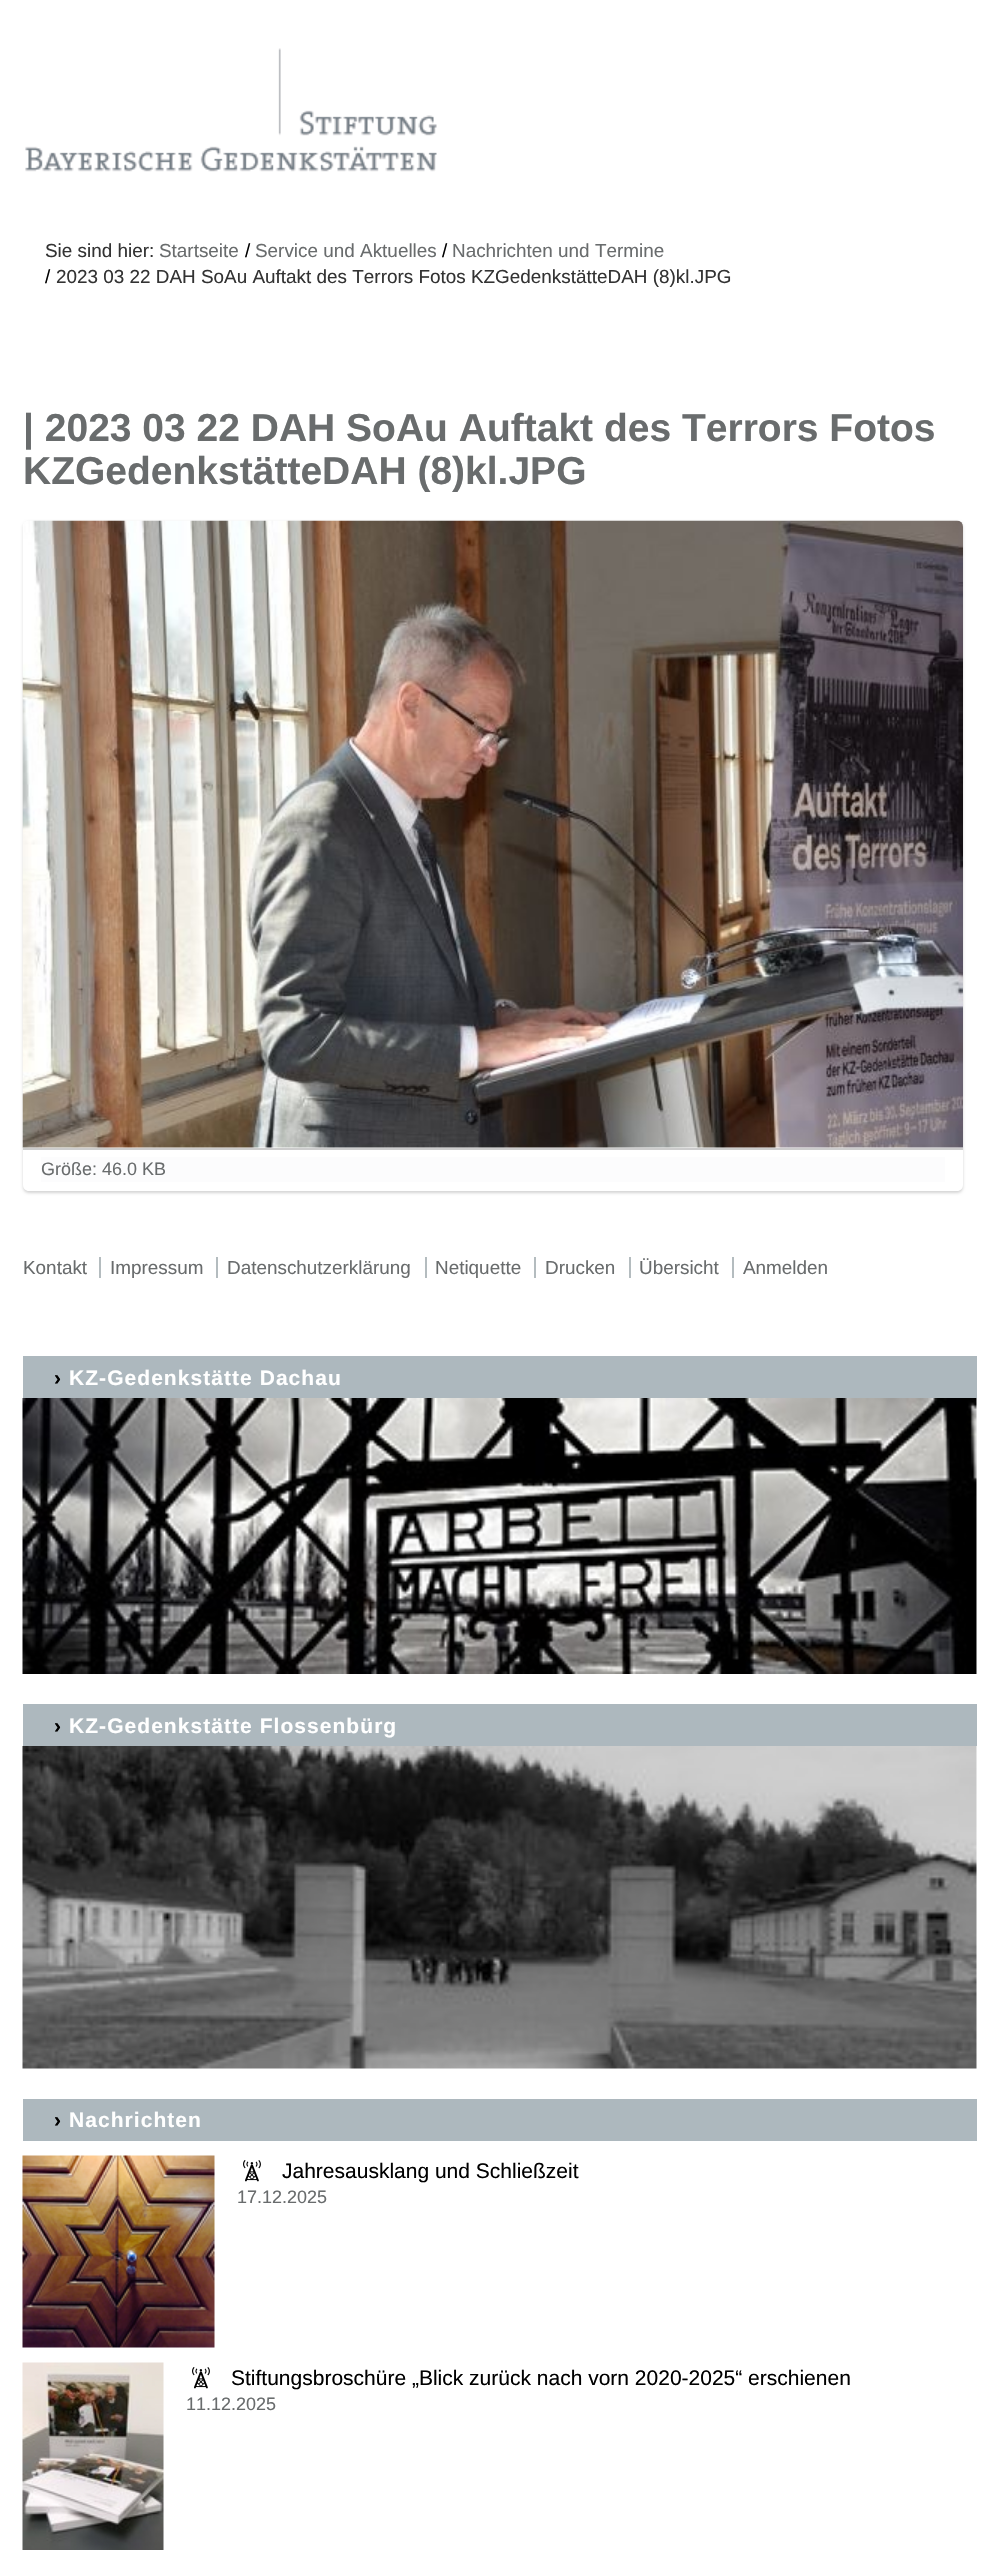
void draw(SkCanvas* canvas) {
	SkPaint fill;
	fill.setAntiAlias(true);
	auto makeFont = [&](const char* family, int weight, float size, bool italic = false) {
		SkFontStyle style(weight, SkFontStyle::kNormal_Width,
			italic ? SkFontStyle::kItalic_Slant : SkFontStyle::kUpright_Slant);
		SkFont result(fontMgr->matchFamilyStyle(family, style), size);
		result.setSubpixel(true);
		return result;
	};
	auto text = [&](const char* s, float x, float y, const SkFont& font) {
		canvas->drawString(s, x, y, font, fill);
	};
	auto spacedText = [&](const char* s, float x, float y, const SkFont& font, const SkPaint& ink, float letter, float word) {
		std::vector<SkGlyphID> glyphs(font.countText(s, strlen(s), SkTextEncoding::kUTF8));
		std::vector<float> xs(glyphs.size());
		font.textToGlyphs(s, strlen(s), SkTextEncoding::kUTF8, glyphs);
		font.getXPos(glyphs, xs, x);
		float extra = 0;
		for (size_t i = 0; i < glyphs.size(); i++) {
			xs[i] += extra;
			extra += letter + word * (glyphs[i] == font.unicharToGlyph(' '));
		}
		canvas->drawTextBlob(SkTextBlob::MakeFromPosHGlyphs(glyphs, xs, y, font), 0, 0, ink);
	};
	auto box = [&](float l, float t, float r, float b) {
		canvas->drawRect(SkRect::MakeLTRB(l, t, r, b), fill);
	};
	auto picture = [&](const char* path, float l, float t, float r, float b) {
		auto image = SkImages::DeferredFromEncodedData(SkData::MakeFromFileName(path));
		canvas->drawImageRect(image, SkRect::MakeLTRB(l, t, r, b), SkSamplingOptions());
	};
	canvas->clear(0xFFFFFFFF);
	picture("image0.png", 25, 48, 437, 172);
	canvas->save();
	canvas->clipPath(SkPathBuilder(SkPathFillType::kEvenOdd).moveTo(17, 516).lineTo(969, 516).lineTo(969, 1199).lineTo(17, 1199).close().moveTo(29, 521).lineTo(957, 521).cubicTo(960.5f, 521, 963, 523.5f, 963, 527).lineTo(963, 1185).cubicTo(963, 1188.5f, 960.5f, 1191, 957, 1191).lineTo(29, 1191).cubicTo(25.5f, 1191, 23, 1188.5f, 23, 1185).lineTo(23, 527).cubicTo(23, 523.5f, 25.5f, 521, 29, 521).close().detach(), true);
	fill.setColor(0x2B000000);
	fill.setMaskFilter(SkMaskFilter::MakeBlur(kNormal_SkBlurStyle, 1.5f));
	canvas->drawRoundRect(SkRect::MakeLTRB(23, 522, 963, 1193), 6, 6, fill);
	fill.setMaskFilter(nullptr);
	canvas->restore();
	fill.setColor(0xFFCCCCCC);
	box(23, 1148, 963, 1150);
	picture("image1.png", 22, 520, 963, 1148);
	fill.setColor(0xFFFCFCFD);
	box(41, 1157, 945, 1182);
	fill.setColor(0xFFB4BCBF);
	box(99, 1257, 101, 1278);
	box(216, 1257, 218, 1278);
	box(425, 1257, 427, 1278);
	box(534, 1257, 536, 1278);
	box(629, 1257, 631, 1278);
	box(732, 1257, 734, 1278);
	fill.setColor(0xFFADB8BE);
	box(23, 1356, 977, 1398);
	picture("image2.png", 22, 1398, 977, 1674);
	box(23, 1704, 977, 1746);
	picture("image3.png", 22, 1746, 977, 2069);
	box(23, 2099, 977, 2141);
	picture("image4.png", 22, 2155, 215, 2348);
	picture("image5.png", 243, 2160, 261, 2182);
	picture("image6.png", 22, 2362, 164, 2550);
	picture("image5.png", 192, 2367, 210, 2389);
	auto font1 = makeFont("Liberation Sans", 400, 18.9f);
	fill.setColor(0xFF333333);
	text("Sie sind hier:", 45, 257, font1);
	fill.setColor(0xFF696C6D);
	text("Startseite", 159, 257, font1);
	fill.setColor(0xFF000000);
	text("/", 245, 257, font1);
	fill.setColor(0xFF696C6D);
	text("Service und Aktuelles", 255, 257, font1);
	fill.setColor(0xFF000000);
	text("/", 442, 257, font1);
	fill.setColor(0xFF696C6D);
	text("Nachrichten und Termine", 452, 257, font1);
	fill.setColor(0xFF000000);
	text("/", 45, 283, font1);
	fill.setColor(0xFF333333);
	text("2023 03 22 DAH SoAu Auftakt des Terrors Fotos KZGedenkstätteDAH (8)kl.JPG", 56, 283, font1);
	auto font2 = makeFont("Liberation Sans", 700, 39);
	fill.setColor(0xFF696C6D);
	text("| 2023 03 22 DAH SoAu Auftakt des Terrors Fotos", 23, 441, font2);
	text("KZGedenkstätteDAH (8)kl.JPG", 23, 484, font2);
	auto font3 = makeFont("Liberation Sans", 400, 18);
	text("Größe: 46.0 KB", 41, 1175, font3);
	text("Kontakt", 23, 1274, font1);
	text("Impressum", 110, 1274, font1);
	text("Datenschutzerklärung", 227, 1274, font1);
	text("Netiquette", 435, 1274, font1);
	text("Drucken", 545, 1274, font1);
	text("Übersicht", 639, 1274, font1);
	text("Anmelden", 743, 1274, font1);
	auto font4 = makeFont("Liberation Sans", 700, 21);
	fill.setColor(0xFF000000);
	spacedText("›", 54, 1385, font4, fill, 1.05f, 0);
	fill.setColor(0xFFFFFFFF);
	spacedText("KZ-Gedenkstätte Dachau", 69, 1385, font4, fill, 1.05f, 0);
	fill.setColor(0xFF000000);
	spacedText("›", 54, 1733, font4, fill, 1.05f, 0);
	fill.setColor(0xFFFFFFFF);
	spacedText("KZ-Gedenkstätte Flossenbürg", 69, 1733, font4, fill, 1.05f, 0);
	fill.setColor(0xFF000000);
	spacedText("›", 54, 2127, font4, fill, 1.05f, 0);
	fill.setColor(0xFFFFFFFF);
	spacedText("Nachrichten", 69, 2127, font4, fill, 1.05f, 0);
	auto font5 = makeFont("Liberation Sans", 400, 21);
	fill.setColor(0xFF000000);
	text("Jahresausklang und Schließzeit", 282, 2178, font5);
	fill.setColor(0xFF696C6D);
	text("17.12.2025", 237, 2203, font3);
	fill.setColor(0xFF000000);
	text("Stiftungsbroschüre „Blick zurück nach vorn 2020-2025“ erschienen", 231, 2385, font5);
	fill.setColor(0xFF696C6D);
	text("11.12.2025", 186, 2410, font3);
}
